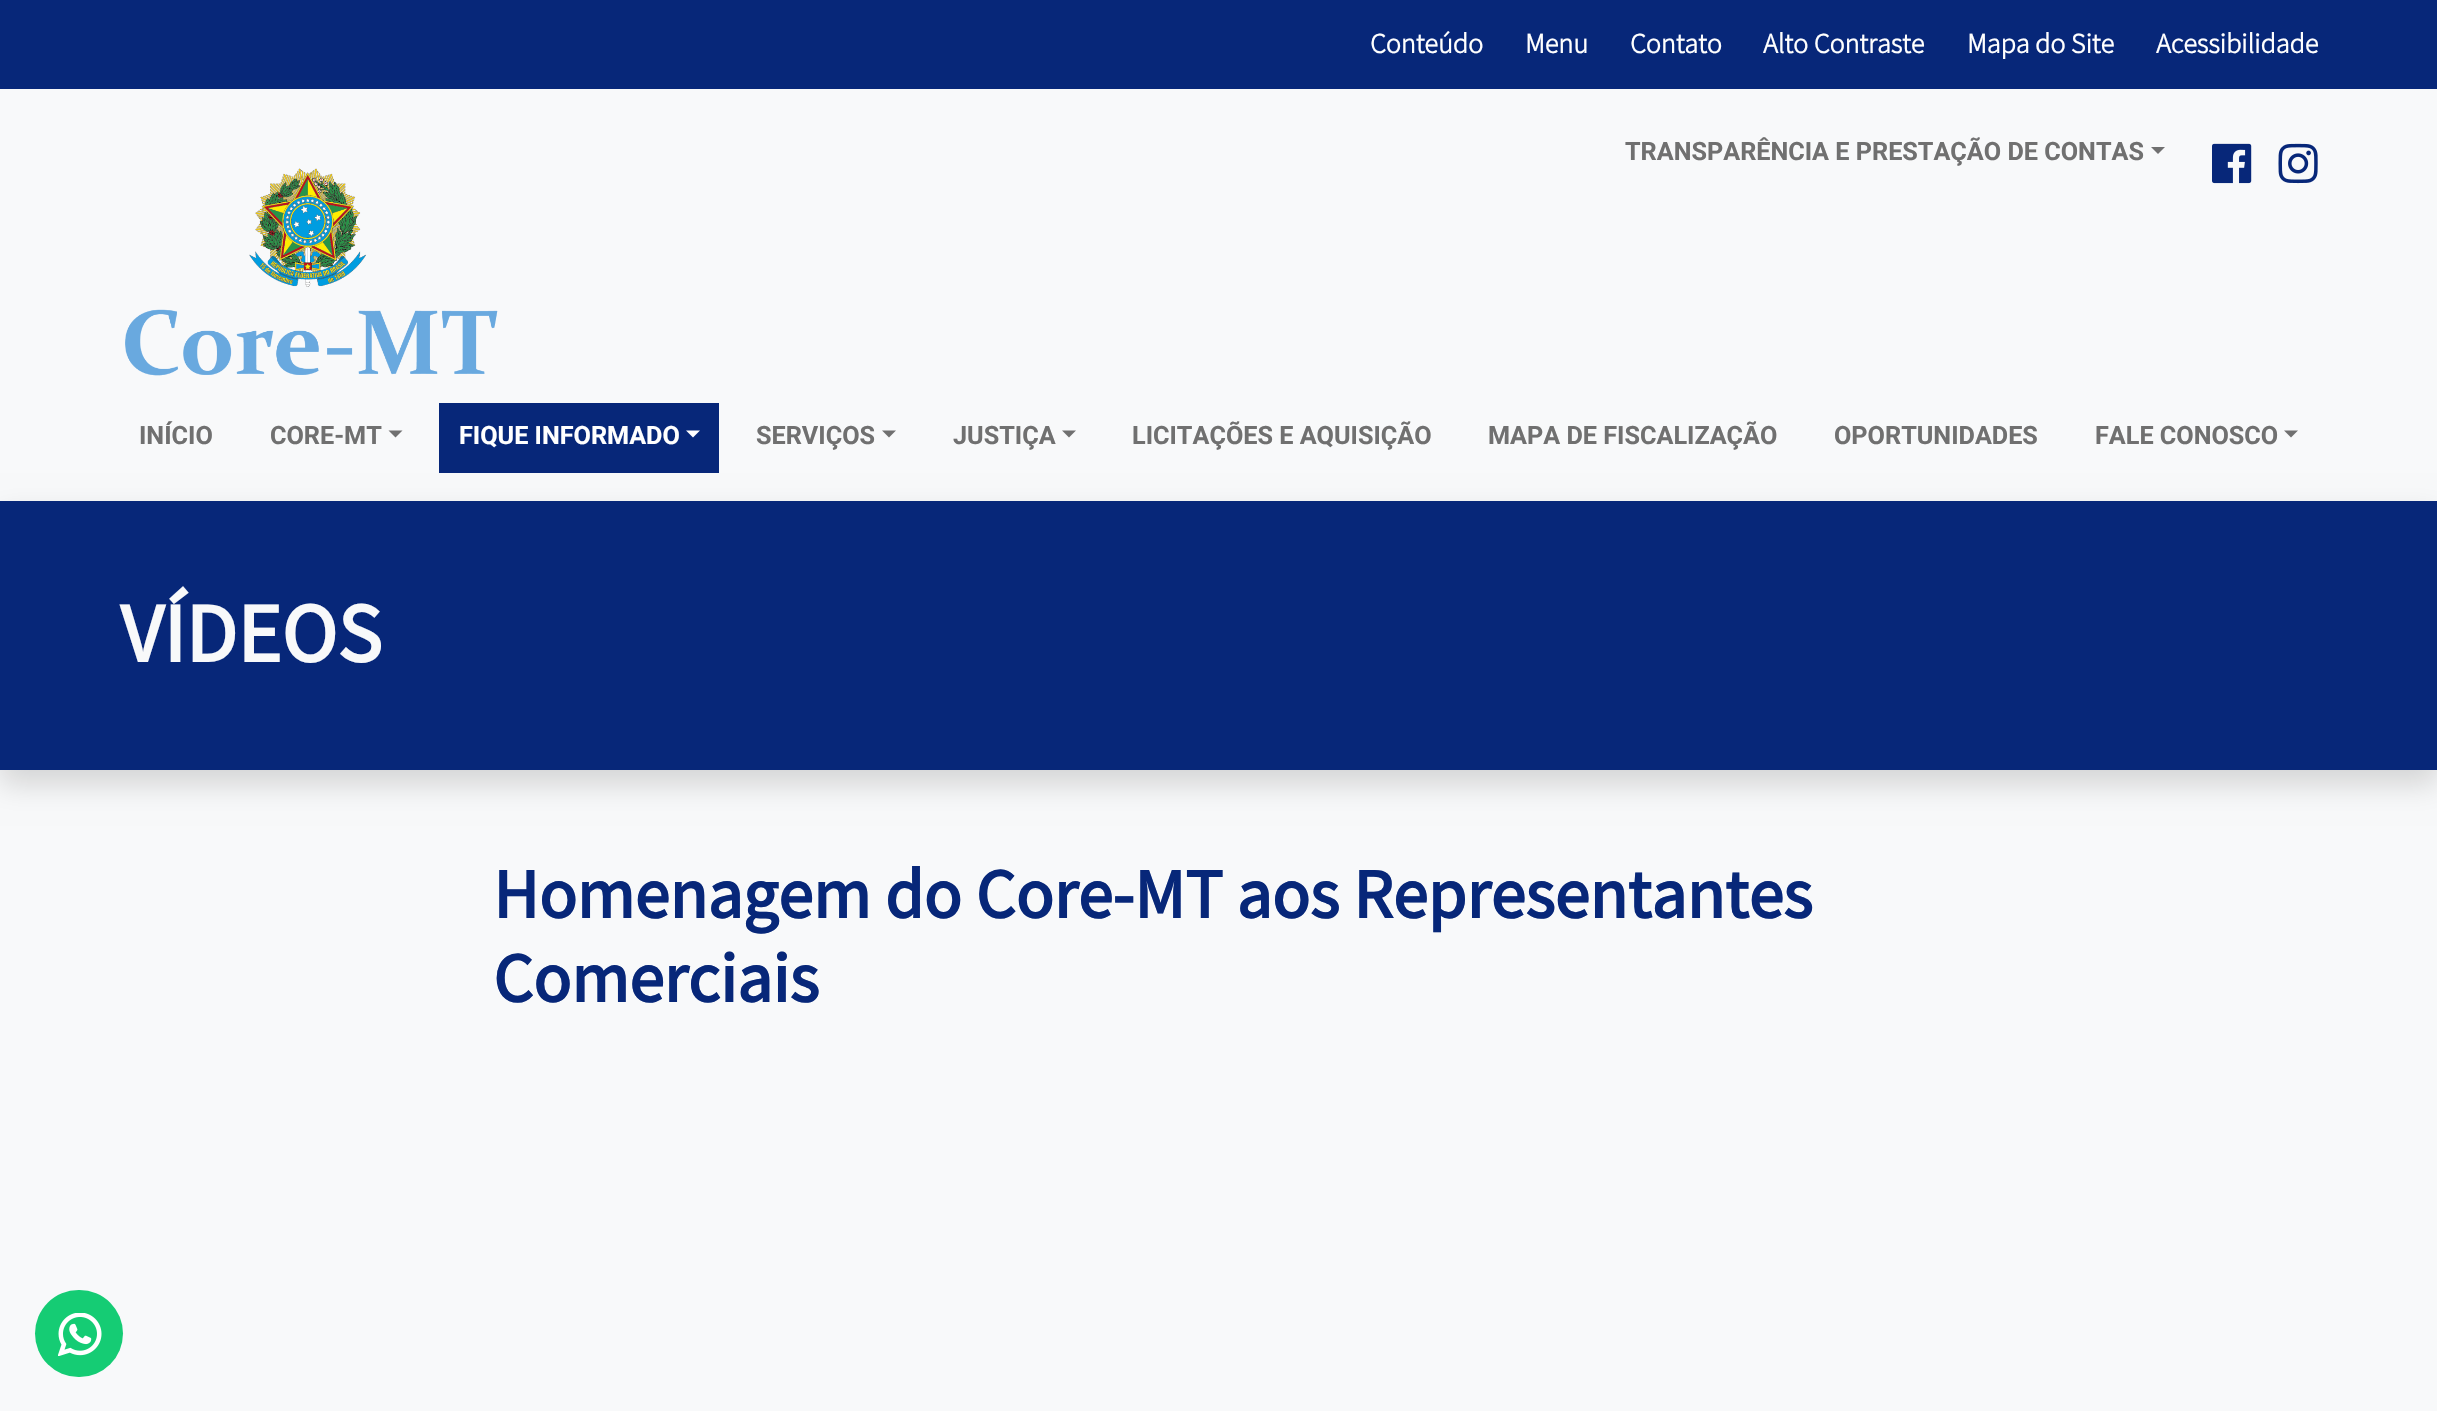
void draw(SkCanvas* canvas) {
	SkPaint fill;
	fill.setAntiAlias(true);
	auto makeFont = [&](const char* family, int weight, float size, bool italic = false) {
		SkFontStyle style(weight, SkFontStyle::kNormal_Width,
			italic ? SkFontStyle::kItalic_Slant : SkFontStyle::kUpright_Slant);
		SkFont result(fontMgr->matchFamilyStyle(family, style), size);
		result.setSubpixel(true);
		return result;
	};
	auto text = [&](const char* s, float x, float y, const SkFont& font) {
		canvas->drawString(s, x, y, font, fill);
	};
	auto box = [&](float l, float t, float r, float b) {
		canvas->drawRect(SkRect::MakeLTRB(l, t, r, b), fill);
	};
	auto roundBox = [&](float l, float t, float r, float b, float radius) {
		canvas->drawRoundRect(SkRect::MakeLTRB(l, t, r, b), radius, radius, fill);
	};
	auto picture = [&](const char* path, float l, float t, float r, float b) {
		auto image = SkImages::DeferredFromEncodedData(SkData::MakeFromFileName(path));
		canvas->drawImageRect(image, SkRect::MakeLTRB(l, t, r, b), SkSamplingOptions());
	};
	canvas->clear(0xFFF8F9FA);
	fill.setColor(0xFF072779);
	box(0, 0, 2437, 89);
	fill.setColor(0xFF707070);
	canvas->drawPath(SkPathBuilder().moveTo(2151, 147).lineTo(2165, 147).lineTo(2158, 154).close().detach(), fill);
	picture("image0.png", 2212, 143, 2252, 184);
	picture("image1.png", 2278, 143, 2318, 184);
	picture("image2.png", 125, 168, 498, 376);
	canvas->drawPath(SkPathBuilder().moveTo(388.5f, 430.5f).lineTo(402.5f, 430.5f).lineTo(395.5f, 437.5f).close().detach(), fill);
	fill.setColor(0x26000000);
	fill.setMaskFilter(SkMaskFilter::MakeBlur(kNormal_SkBlurStyle, 14));
	canvas->drawRect(SkRect::MakeLTRB(0, 515, 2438, 784), fill);
	fill.setMaskFilter(nullptr);
	fill.setColor(0xFF072779);
	box(439, 403, 719, 473);
	fill.setColor(0xFFFFFFFF);
	canvas->drawPath(SkPathBuilder().moveTo(686, 430.5f).lineTo(700, 430.5f).lineTo(693, 437.5f).close().detach(), fill);
	fill.setColor(0xFF707070);
	canvas->drawPath(SkPathBuilder().moveTo(882, 430.5f).lineTo(896, 430.5f).lineTo(889, 437.5f).close().detach(), fill);
	canvas->drawPath(SkPathBuilder().moveTo(1062, 430.5f).lineTo(1076, 430.5f).lineTo(1069, 437.5f).close().detach(), fill);
	canvas->drawPath(SkPathBuilder().moveTo(2284, 430.5f).lineTo(2298, 430.5f).lineTo(2291, 437.5f).close().detach(), fill);
	fill.setColor(0xFF072779);
	box(0, 501, 2437, 770);
	fill.setColor(0xFF15CC74);
	roundBox(35, 1290, 123, 1377, 43.5f);
	picture("image3.png", 58, 1313, 102, 1356);
	auto font1 = makeFont("Source Sans Pro", 700, 28);
	fill.setColor(0xFFFFFFFF);
	text("Conteúdo", 1370, 53, font1);
	text("Menu", 1525, 53, font1);
	text("Contato", 1630, 53, font1);
	text("Alto Contraste", 1763, 53, font1);
	text("Mapa do Site", 1967, 53, font1);
	text("Acessibilidade", 2156, 53, font1);
	auto font2 = makeFont("Roboto", 700, 25.2f);
	fill.setColor(0xFF707070);
	text("TRANSPARÊNCIA E PRESTAÇÃO DE CONTAS", 1625, 160, font2);
	text("INÍCIO", 139, 444, font2);
	text("CORE-MT", 270, 444, font2);
	fill.setColor(0xFFFFFFFF);
	text("FIQUE INFORMADO", 459, 444, font2);
	fill.setColor(0xFF707070);
	text("SERVIÇOS", 756, 444, font2);
	text("JUSTIÇA", 953, 444, font2);
	text("LICITAÇÕES E AQUISIÇÃO", 1132, 444, font2);
	text("MAPA DE FISCALIZAÇÃO", 1488, 444, font2);
	text("OPORTUNIDADES", 1834, 444, font2);
	text("FALE CONOSCO", 2095, 444, font2);
	auto font3 = makeFont("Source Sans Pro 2", 700, 84);
	fill.setColor(0xFFF8F9FA);
	text("VÍDEOS", 120, 662, font3);
	auto font4 = makeFont("Source Sans Pro 2", 700, 70);
	fill.setColor(0xFF072779);
	text("Homenagem do Core-MT aos Representantes", 493, 918, font4);
	text("Comerciais", 493, 1002, font4);
}
